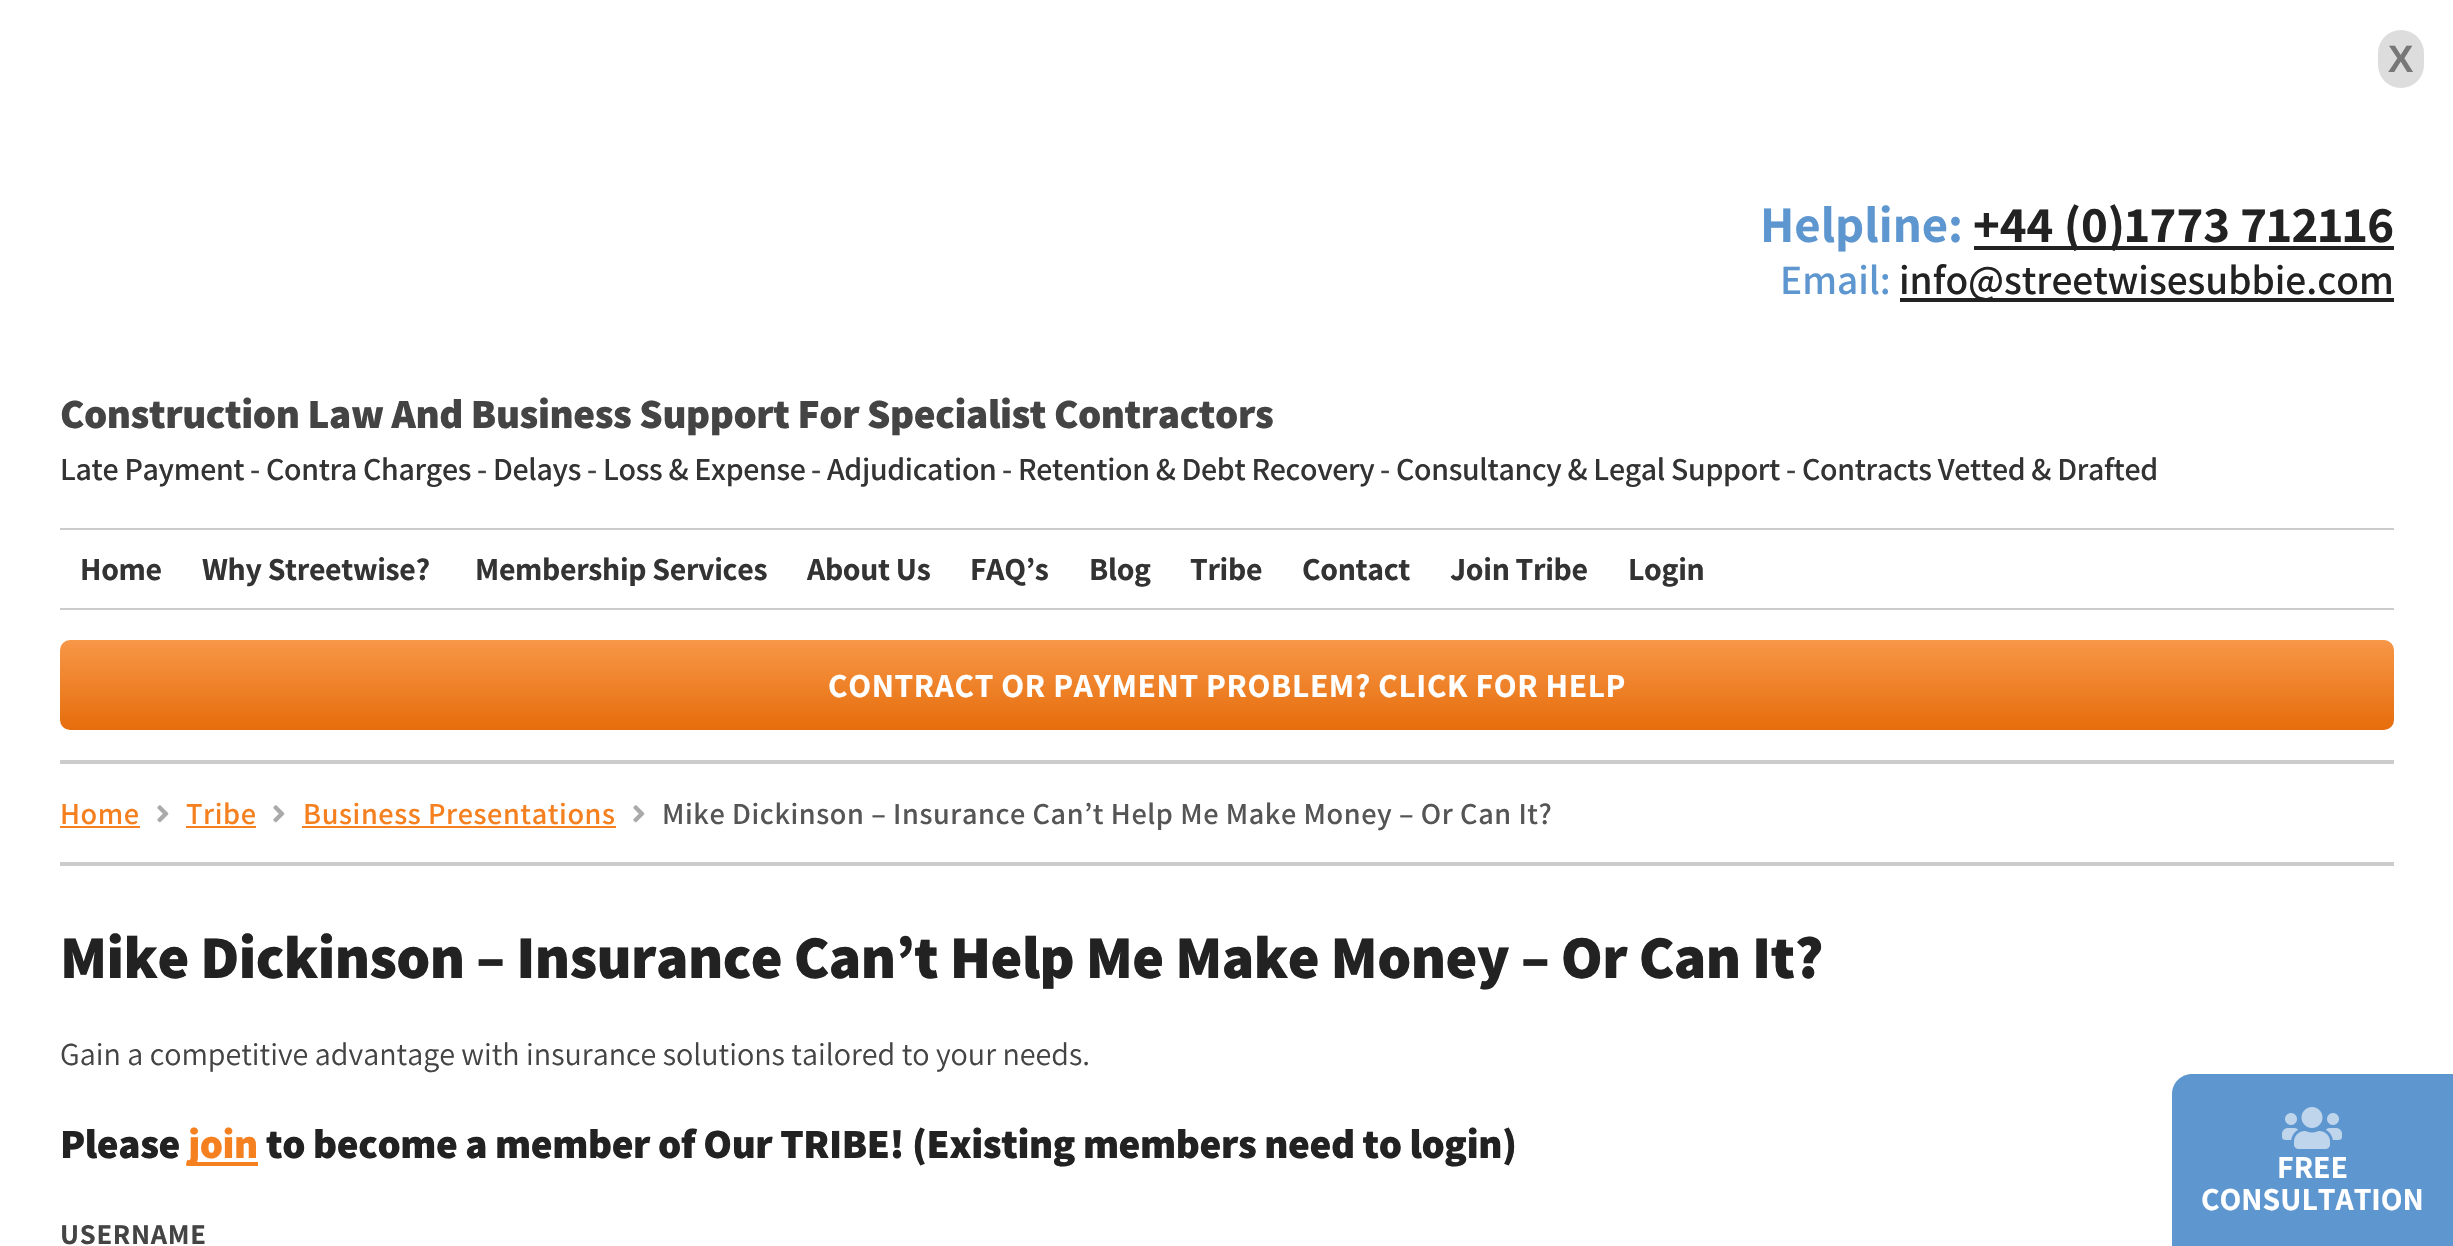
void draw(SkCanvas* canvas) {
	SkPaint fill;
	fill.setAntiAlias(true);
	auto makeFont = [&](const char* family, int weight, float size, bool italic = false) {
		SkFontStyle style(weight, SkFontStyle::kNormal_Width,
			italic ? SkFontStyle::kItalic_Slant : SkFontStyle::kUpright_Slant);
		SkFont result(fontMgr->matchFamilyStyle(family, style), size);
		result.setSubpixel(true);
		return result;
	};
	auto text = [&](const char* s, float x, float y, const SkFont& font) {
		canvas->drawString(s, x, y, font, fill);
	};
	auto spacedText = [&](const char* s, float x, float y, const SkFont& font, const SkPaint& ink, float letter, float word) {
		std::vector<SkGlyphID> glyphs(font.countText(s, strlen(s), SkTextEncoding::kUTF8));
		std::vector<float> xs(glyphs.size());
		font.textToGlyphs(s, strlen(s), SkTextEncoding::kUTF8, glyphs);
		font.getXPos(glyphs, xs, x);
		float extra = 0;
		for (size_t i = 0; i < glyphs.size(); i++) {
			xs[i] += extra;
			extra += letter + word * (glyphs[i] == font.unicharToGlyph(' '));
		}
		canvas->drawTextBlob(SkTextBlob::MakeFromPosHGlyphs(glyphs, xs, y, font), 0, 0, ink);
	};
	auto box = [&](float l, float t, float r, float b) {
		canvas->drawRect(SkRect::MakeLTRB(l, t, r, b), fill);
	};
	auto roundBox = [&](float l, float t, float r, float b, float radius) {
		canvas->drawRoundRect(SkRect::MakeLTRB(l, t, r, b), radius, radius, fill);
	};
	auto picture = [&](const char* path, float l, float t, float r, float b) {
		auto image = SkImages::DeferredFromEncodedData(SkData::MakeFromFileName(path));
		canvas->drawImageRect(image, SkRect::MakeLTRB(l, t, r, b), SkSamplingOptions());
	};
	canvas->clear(0xFFFFFFFF);
	fill.setColor(0xFFDDDDDD);
	roundBox(2378, 30, 2424, 88, 23);
	fill.setColor(0xFFCCCCCC);
	box(60, 528, 2394, 530);
	fill.setColor(0xFF222222);
	box(1974, 246, 2394, 250);
	box(1900, 298, 2394, 302);
	fill.setColor(0xFFCCCCCC);
	box(60, 608, 2394, 610);
	box(60, 760, 2394, 764);
	{
		const SkColor colors[] = {0xFFF79748, 0xFFE66D0B};
		const float stops[] = {0, 1};
		const SkPoint ends[] = {{1227, 640}, {1227, 730}};
		fill.setShader(SkGradientShader::MakeLinear(ends, colors, stops, 2, SkTileMode::kClamp));
		fill.setAlpha(255);
	}
	roundBox(60, 640, 2394, 730, 10);
	fill.setShader(nullptr);
	fill.setColor(0xFFCCCCCC);
	box(60, 862, 2394, 866);
	fill.setColor(0xFFF58020);
	box(60, 826, 140, 828);
	picture("image0.png", 157, 805, 169, 823);
	box(186, 826, 256, 828);
	picture("image0.png", 273, 805, 285, 823);
	box(302, 826, 616, 828);
	picture("image0.png", 633, 805, 645, 823);
	box(188, 1162, 258, 1166);
	fill.setColor(0xFF5E96CF);
	canvas->drawPath(SkPathBuilder().moveTo(2192, 1074).lineTo(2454, 1074).lineTo(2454, 1246).lineTo(2172, 1246).lineTo(2172, 1094).cubicTo(2172, 1083, 2181, 1074, 2192, 1074).close().detach(), fill);
	picture("image1.png", 2282, 1107, 2342, 1149);
	auto font1 = makeFont("Liberation Sans", 700, 38);
	fill.setColor(0xFF777777);
	text("X", 2388, 72, font1);
	auto font2 = makeFont("Assistant", 700, 51.25f);
	fill.setColor(0xFF5E96CF);
	text("Helpline:", 1760, 242, font2);
	fill.setColor(0xFF222222);
	text("+44 (0)1773 712116", 1973, 242, font2);
	auto font3 = makeFont("Assistant", 600, 41.6f);
	fill.setColor(0xFF5E96CF);
	text("Email:", 1780, 294, font3);
	fill.setColor(0xFF222222);
	text("info@streetwisesubbie.com", 1899, 294, font3);
	auto font4 = makeFont("Assistant", 800, 41.6f);
	fill.setColor(0xFF444444);
	spacedText("Construction Law And Business Support For Specialist Contractors", 60, 428, font4, fill, -0.42f, 0);
	auto font5 = makeFont("Assistant", 600, 32);
	fill.setColor(0xFF333333);
	spacedText("Late Payment", 60, 480, font5, fill, -0.3f, 0);
	fill.setColor(0xFF444444);
	spacedText("-", 250, 480, font5, fill, -0.3f, 0);
	fill.setColor(0xFF333333);
	spacedText("Contra Charges", 266, 480, font5, fill, -0.3f, 0);
	fill.setColor(0xFF444444);
	spacedText("-", 477, 480, font5, fill, -0.3f, 0);
	fill.setColor(0xFF333333);
	spacedText("Delays", 493, 480, font5, fill, -0.3f, 0);
	fill.setColor(0xFF444444);
	spacedText("-", 587, 480, font5, fill, -0.3f, 0);
	fill.setColor(0xFF333333);
	spacedText("Loss & Expense", 603, 480, font5, fill, -0.3f, 0);
	fill.setColor(0xFF444444);
	spacedText("-", 811, 480, font5, fill, -0.3f, 0);
	fill.setColor(0xFF333333);
	spacedText("Adjudication", 827, 480, font5, fill, -0.3f, 0);
	fill.setColor(0xFF444444);
	spacedText("-", 1002, 480, font5, fill, -0.3f, 0);
	fill.setColor(0xFF333333);
	spacedText("Retention & Debt Recovery", 1018, 480, font5, fill, -0.3f, 0);
	fill.setColor(0xFF444444);
	spacedText("-", 1380, 480, font5, fill, -0.3f, 0);
	fill.setColor(0xFF333333);
	spacedText("Consultancy & Legal Support", 1396, 480, font5, fill, -0.3f, 0);
	fill.setColor(0xFF444444);
	spacedText("-", 1786, 480, font5, fill, -0.3f, 0);
	fill.setColor(0xFF333333);
	spacedText("Contracts Vetted & Drafted", 1802, 480, font5, fill, -0.3f, 0);
	auto font6 = makeFont("Assistant", 700, 32);
	spacedText("Home", 80, 580, font6, fill, -0.3f, 0);
	spacedText("Why Streetwise?", 202, 580, font6, fill, -0.3f, 0);
	spacedText("Membership Services", 475, 580, font6, fill, -0.3f, 0);
	spacedText("About Us", 807, 580, font6, fill, -0.3f, 0);
	spacedText("FAQ’s", 970, 580, font6, fill, -0.3f, 0);
	spacedText("Blog", 1089, 580, font6, fill, -0.3f, 0);
	spacedText("Tribe", 1190, 580, font6, fill, -0.3f, 0);
	spacedText("Contact", 1302, 580, font6, fill, -0.3f, 0);
	spacedText("Join Tribe", 1450, 580, font6, fill, -0.3f, 0);
	spacedText("Login", 1628, 580, font6, fill, -0.3f, 0);
	auto font7 = makeFont("Assistant", 700, 33.6f);
	fill.setColor(0xFFFFFFFF);
	spacedText("CONTRACT OR PAYMENT PROBLEM? CLICK FOR HELP", 828, 697, font7, fill, 0.65f, 0);
	auto font8 = makeFont("Assistant", 600, 30.4f);
	fill.setColor(0xFFF58020);
	spacedText("Home", 60, 824, font8, fill, 0.6f, 0);
	spacedText("Tribe", 186, 824, font8, fill, 0.6f, 0);
	spacedText("Business Presentations", 303, 824, font8, fill, 0.6f, 0);
	fill.setColor(0xFF555555);
	spacedText("Mike Dickinson – Insurance Can’t Help Me Make Money – Or Can It?", 662, 824, font8, fill, 0.6f, 0);
	auto font9 = makeFont("Assistant", 800, 60.8f);
	fill.setColor(0xFF222222);
	spacedText("Mike Dickinson – Insurance Can’t Help Me Make Money – Or Can It?", 60, 978, font9, fill, -0.6f, 0);
	auto font10 = makeFont("Assistant", 400, 32);
	fill.setColor(0xFF444444);
	text("Gain a competitive advantage with insurance solutions tailored to your needs.", 60, 1065, font10);
	fill.setColor(0xFF222222);
	spacedText("Please", 60, 1158, font4, fill, -0.42f, 0);
	fill.setColor(0xFFF58020);
	spacedText("join", 188, 1158, font4, fill, -0.42f, 0);
	fill.setColor(0xFF222222);
	spacedText("to become a member of Our TRIBE! (Existing members need to login)", 266, 1158, font4, fill, -0.42f, 0);
	auto font11 = makeFont("Assistant", 700, 28.75f);
	fill.setColor(0xFF444444);
	spacedText("USERNAME", 60, 1244, font11, fill, 0.75f, 0);
	fill.setColor(0xFFFFFFFF);
	text("FREE", 2277, 1178, font6);
	text("CONSULTATION", 2201, 1210, font6);
}
